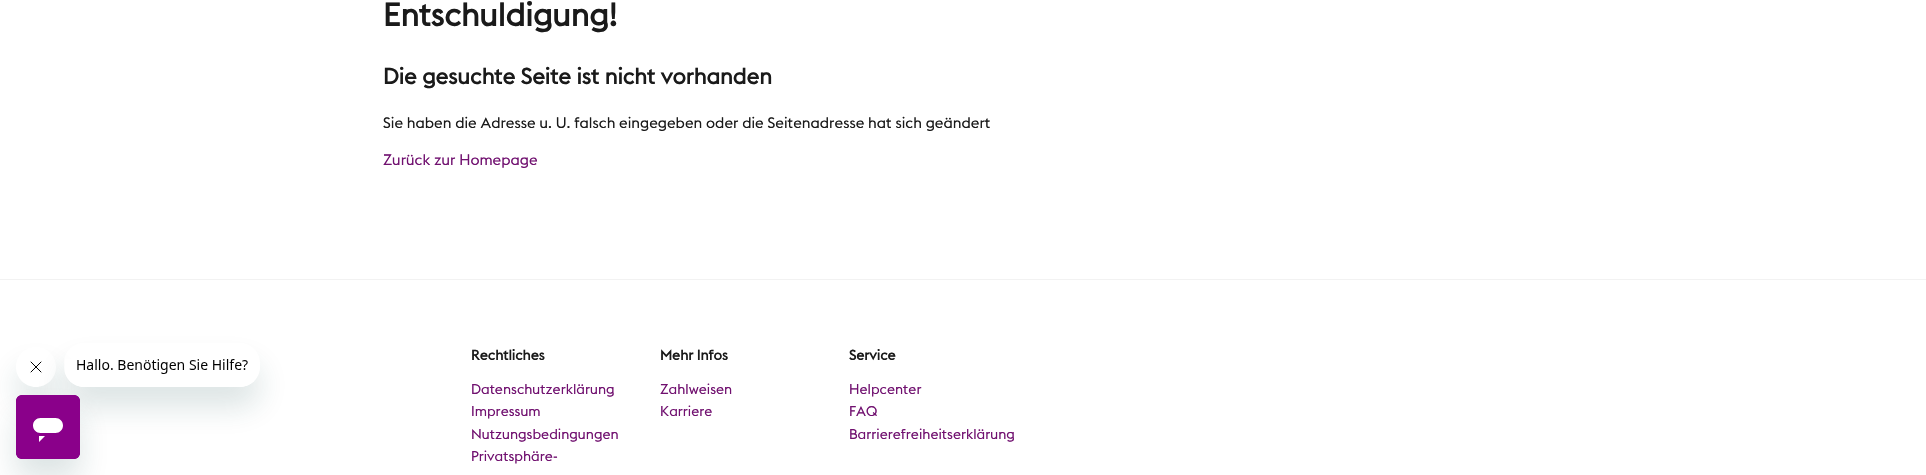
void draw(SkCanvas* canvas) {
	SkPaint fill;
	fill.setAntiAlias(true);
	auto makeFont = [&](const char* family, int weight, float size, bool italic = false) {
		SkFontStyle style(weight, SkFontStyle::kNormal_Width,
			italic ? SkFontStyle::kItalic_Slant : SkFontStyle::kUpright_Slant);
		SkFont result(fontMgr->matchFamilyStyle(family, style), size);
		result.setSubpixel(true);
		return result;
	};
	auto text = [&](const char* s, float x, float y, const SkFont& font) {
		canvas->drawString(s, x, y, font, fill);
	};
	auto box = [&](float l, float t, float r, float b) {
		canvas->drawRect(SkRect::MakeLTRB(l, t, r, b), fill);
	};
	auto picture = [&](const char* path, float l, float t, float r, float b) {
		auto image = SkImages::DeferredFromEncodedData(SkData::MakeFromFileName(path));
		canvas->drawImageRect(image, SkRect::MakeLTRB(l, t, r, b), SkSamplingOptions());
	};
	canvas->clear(0xFFFFFFFF);
	canvas->save();
	canvas->clipPath(SkPathBuilder(SkPathFillType::kEvenOdd).moveTo(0, 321).lineTo(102, 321).lineTo(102, 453).lineTo(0, 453).close().moveTo(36, 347).cubicTo(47, 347, 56, 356, 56, 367).cubicTo(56, 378, 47, 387, 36, 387).cubicTo(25, 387, 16, 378, 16, 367).cubicTo(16, 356, 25, 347, 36, 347).close().detach(), true);
	fill.setColor(0x2617494D);
	fill.setMaskFilter(SkMaskFilter::MakeBlur(kNormal_SkBlurStyle, 15));
	canvas->drawRoundRect(SkRect::MakeLTRB(16, 367, 56, 407), 20, 20, fill);
	fill.setMaskFilter(nullptr);
	canvas->restore();
	picture("image1.png", 30, 361, 42, 373);
	canvas->save();
	canvas->clipPath(SkPathBuilder(SkPathFillType::kEvenOdd).moveTo(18, 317).lineTo(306, 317).lineTo(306, 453).lineTo(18, 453).close().moveTo(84, 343).lineTo(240, 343).cubicTo(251, 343, 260, 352, 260, 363).lineTo(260, 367).cubicTo(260, 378, 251, 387, 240, 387).lineTo(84, 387).cubicTo(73, 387, 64, 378, 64, 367).lineTo(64, 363).cubicTo(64, 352, 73, 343, 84, 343).close().detach(), true);
	fill.setMaskFilter(SkMaskFilter::MakeBlur(kNormal_SkBlurStyle, 15));
	canvas->drawRoundRect(SkRect::MakeLTRB(64, 363, 260, 407), 20, 20, fill);
	fill.setMaskFilter(nullptr);
	canvas->restore();
	picture("image0.png", 65, 359, 254, 387);
	fill.setMaskFilter(SkMaskFilter::MakeBlur(kNormal_SkBlurStyle, 15));
	canvas->drawRoundRect(SkRect::MakeLTRB(16, 415, 80, 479), 6, 6, fill);
	fill.setMaskFilter(nullptr);
	picture("image2.png", 16, 395, 80, 459);
	fill.setColor(0xFFF2F2F2);
	box(0, 279, 1926, 280);
	auto font1 = makeFont("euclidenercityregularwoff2", 700, 32);
	fill.setColor(0xFF1A1A1A);
	text("Entschuldigung!", 383, 26, font1);
	auto font2 = makeFont("euclidenercityregularwoff2", 700, 22);
	text("Die gesuchte Seite ist nicht vorhanden", 383, 84, font2);
	auto font3 = makeFont("euclidenercityregularwoff2", 400, 15);
	text("Sie haben die Adresse u. U. falsch eingegeben oder die Seitenadresse hat sich geändert", 383, 128, font3);
	fill.setColor(0xFF711170);
	text("Zurück zur Homepage", 383, 165, font3);
	auto font4 = makeFont("euclidenercityregularwoff2", 700, 14);
	fill.setColor(0xFF1A1A1A);
	text("Rechtliches", 471, 360, font4);
	auto font5 = makeFont("euclidenercityregularwoff2", 400, 14);
	fill.setColor(0xFF711170);
	text("Datenschutzerklärung", 471, 394, font5);
	text("Impressum", 471, 416, font5);
	text("Nutzungsbedingungen", 471, 439, font5);
	text("Privatsphäre-", 471, 461, font5);
	fill.setColor(0xFF1A1A1A);
	text("Mehr Infos", 660, 360, font4);
	fill.setColor(0xFF711170);
	text("Zahlweisen", 660, 394, font5);
	text("Karriere", 660, 416, font5);
	fill.setColor(0xFF1A1A1A);
	text("Service", 849, 360, font4);
	fill.setColor(0xFF711170);
	text("Helpcenter", 849, 394, font5);
	text("FAQ", 849, 416, font5);
	text("Barrierefreiheitserklärung", 849, 439, font5);
}
